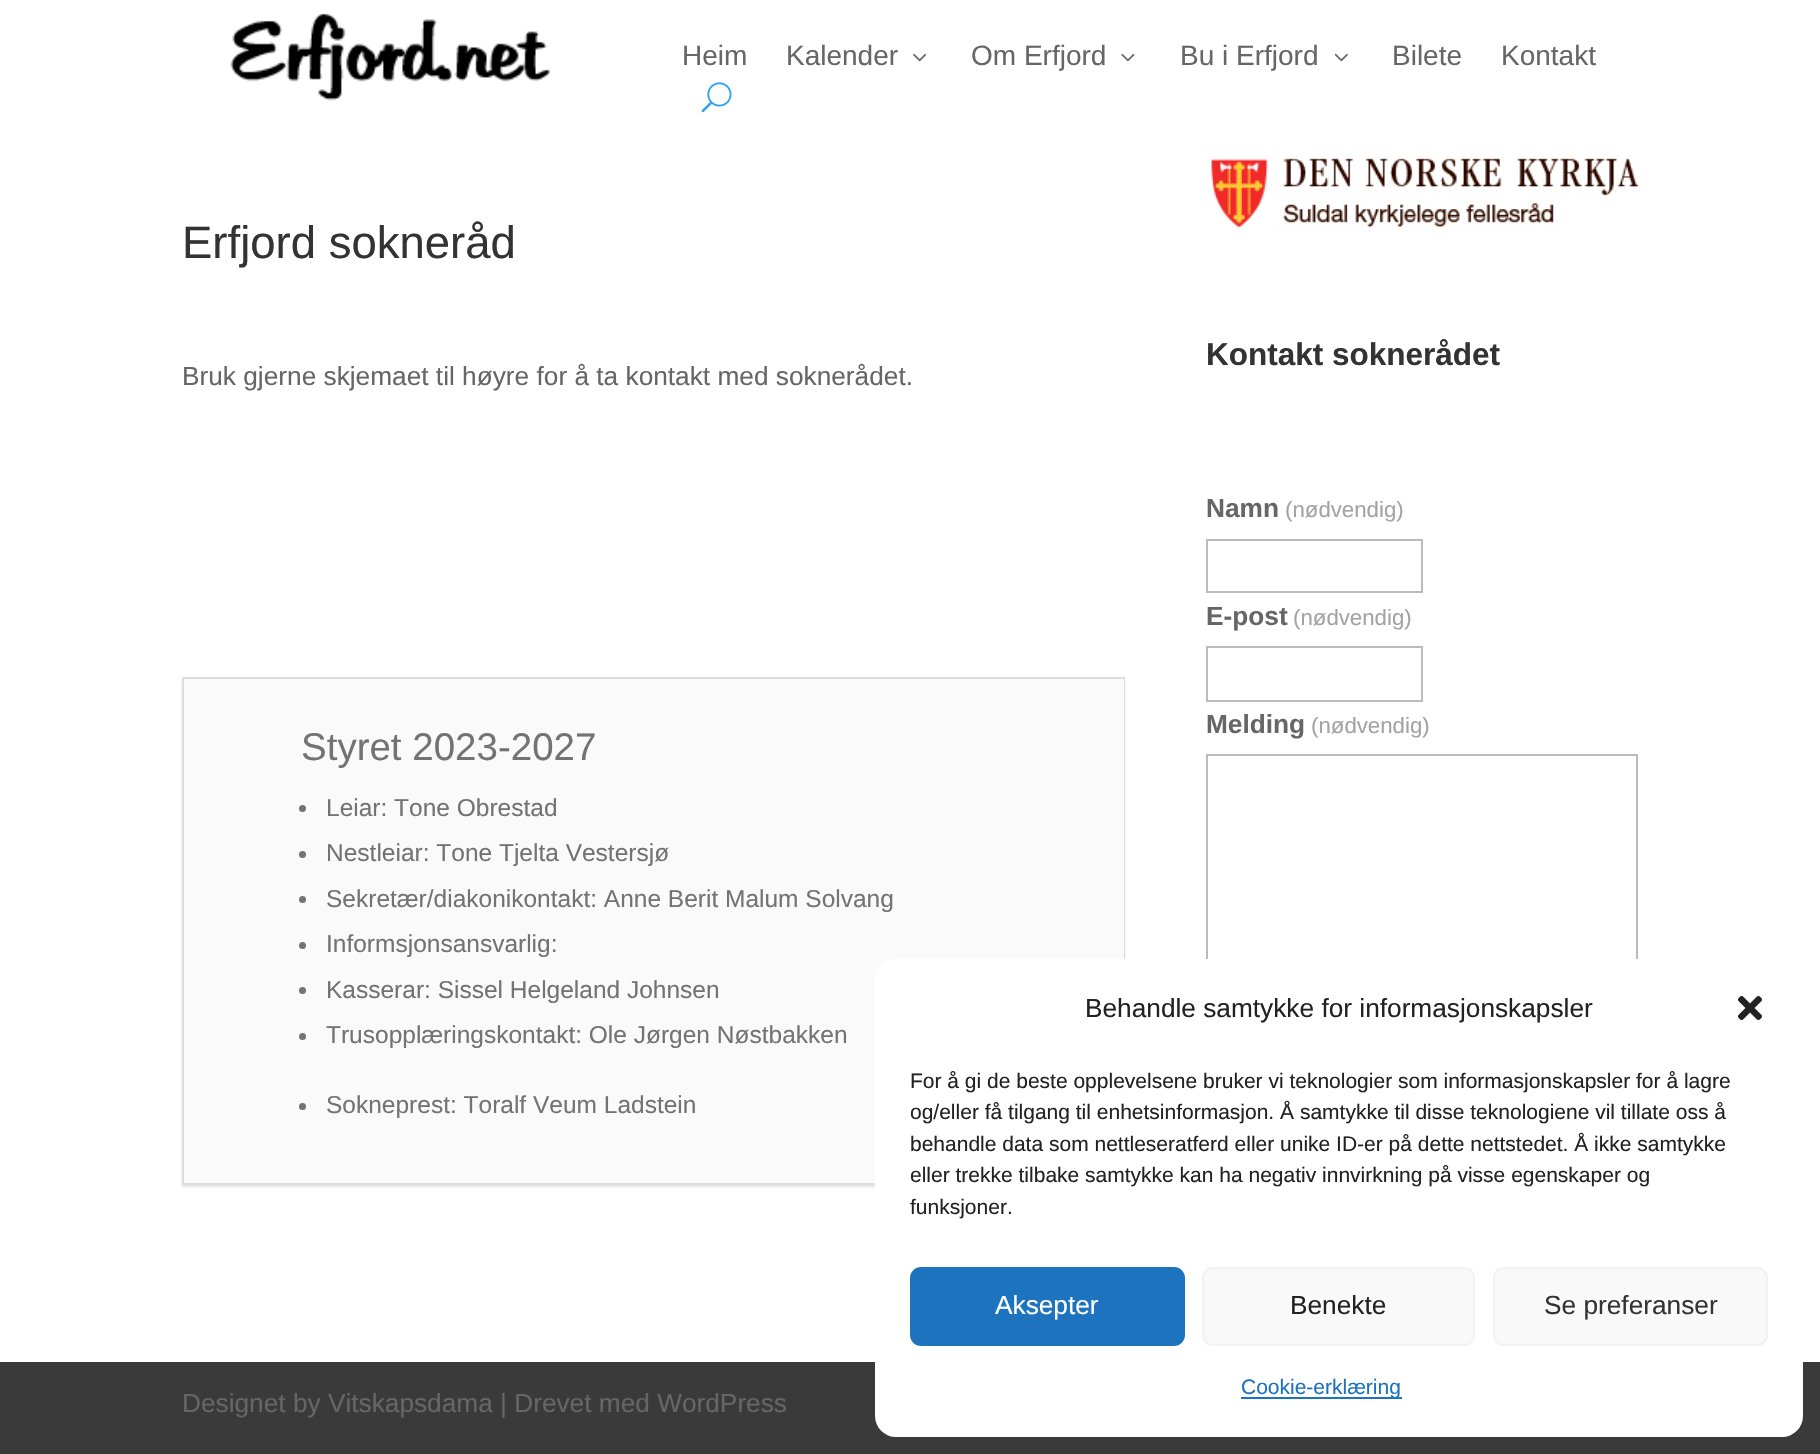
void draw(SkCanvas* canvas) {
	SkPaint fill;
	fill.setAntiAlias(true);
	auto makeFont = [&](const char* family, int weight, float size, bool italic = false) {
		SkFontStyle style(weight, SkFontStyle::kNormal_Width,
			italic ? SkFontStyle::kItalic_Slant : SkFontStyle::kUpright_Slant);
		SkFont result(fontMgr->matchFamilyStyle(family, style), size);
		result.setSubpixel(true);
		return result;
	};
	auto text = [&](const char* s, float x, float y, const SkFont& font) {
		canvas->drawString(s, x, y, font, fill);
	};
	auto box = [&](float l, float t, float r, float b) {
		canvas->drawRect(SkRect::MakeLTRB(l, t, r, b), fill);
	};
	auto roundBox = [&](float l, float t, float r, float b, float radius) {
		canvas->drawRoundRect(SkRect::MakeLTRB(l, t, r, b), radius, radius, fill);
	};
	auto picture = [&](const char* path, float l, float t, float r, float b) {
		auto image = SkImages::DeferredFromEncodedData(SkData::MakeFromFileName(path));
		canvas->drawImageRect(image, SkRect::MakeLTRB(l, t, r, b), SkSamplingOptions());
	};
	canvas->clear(0xFFFFFFFF);
	picture("image0.png", 230, 13, 550, 101);
	picture("image1.png", 913, 53, 927, 62);
	picture("image2.png", 1121, 53, 1135, 62);
	picture("image3.png", 1334, 53, 1348, 62);
	picture("image4.png", 701, 82, 732, 113);
	fill.setColor(0x1A000000);
	fill.setMaskFilter(SkMaskFilter::MakeBlur(kNormal_SkBlurStyle, 1));
	canvas->drawRect(SkRect::MakeLTRB(182, 679, 1125, 1187), fill);
	fill.setMaskFilter(nullptr);
	fill.setStyle(SkPaint::kStroke_Style);
	fill.setStrokeWidth(2);
	fill.setColor(0xFFDDDDDD);
	canvas->drawRect(SkRect::MakeLTRB(183, 678, 1124, 1184), fill);
	fill.setStyle(SkPaint::kFill_Style);
	fill.setColor(0xFFFAFAFA);
	box(184, 679, 1124, 1183);
	fill.setColor(0xFF737373);
	canvas->drawCircle(302.5f, 808.5f, 3.5f, fill);
	canvas->drawCircle(302.5f, 854.5f, 3.5f, fill);
	canvas->drawCircle(302.5f, 899.5f, 3.5f, fill);
	canvas->drawCircle(302.5f, 945.5f, 3.5f, fill);
	canvas->drawCircle(302.5f, 990.5f, 3.5f, fill);
	canvas->drawCircle(302.5f, 1036.5f, 3.5f, fill);
	canvas->drawCircle(302.5f, 1106.5f, 3.5f, fill);
	picture("image5.png", 1209, 155, 1638, 228);
	fill.setStyle(SkPaint::kStroke_Style);
	fill.setColor(0xFFBBBBBB);
	canvas->drawRect(SkRect::MakeLTRB(1207, 540, 1422, 592), fill);
	canvas->drawRect(SkRect::MakeLTRB(1207, 647, 1422, 701), fill);
	canvas->drawRect(SkRect::MakeLTRB(1207, 755, 1637, 1103), fill);
	fill.setStyle(SkPaint::kFill_Style);
	fill.setColor(0xFF3A3A3A);
	box(0, 1362, 1820, 1454);
	fill.setColor(0xFFFFFFFF);
	roundBox(875, 959, 1803, 1437, 21);
	picture("image6.png", 1738, 996, 1762, 1020);
	fill.setColor(0xFF1E73BE);
	canvas->drawRoundRect(SkRect::MakeLTRB(911, 1268, 1184, 1345), 10, 10, fill);
	fill.setStyle(SkPaint::kStroke_Style);
	canvas->drawRoundRect(SkRect::MakeLTRB(911, 1268, 1184, 1345), 10, 10, fill);
	fill.setStyle(SkPaint::kFill_Style);
	fill.setColor(0xFFF9F9F9);
	canvas->drawRoundRect(SkRect::MakeLTRB(1203, 1268, 1474, 1345), 10, 10, fill);
	fill.setStyle(SkPaint::kStroke_Style);
	fill.setColor(0xFFF2F2F2);
	canvas->drawRoundRect(SkRect::MakeLTRB(1203, 1268, 1474, 1345), 10, 10, fill);
	fill.setStyle(SkPaint::kFill_Style);
	fill.setColor(0xFFF9F9F9);
	canvas->drawRoundRect(SkRect::MakeLTRB(1494, 1268, 1767, 1345), 10, 10, fill);
	fill.setStyle(SkPaint::kStroke_Style);
	fill.setColor(0xFFF2F2F2);
	canvas->drawRoundRect(SkRect::MakeLTRB(1494, 1268, 1767, 1345), 10, 10, fill);
	fill.setStyle(SkPaint::kFill_Style);
	fill.setColor(0xFF1E73BE);
	box(1241, 1397, 1402, 1399);
	auto font1 = makeFont("Liberation Sans", 400, 28);
	fill.setColor(0xFF666666);
	text("Heim", 682, 65, font1);
	text("Kalender", 786, 65, font1);
	text("Om Erfjord", 971, 65, font1);
	text("Bu i Erfjord", 1180, 65, font1);
	text("Bilete", 1392, 65, font1);
	text("Kontakt", 1501, 65, font1);
	auto font2 = makeFont("Liberation Sans", 400, 45.5f);
	fill.setColor(0xFF333333);
	text("Erfjord sokneråd", 182, 258, font2);
	auto font3 = makeFont("Liberation Sans", 400, 26.25f);
	fill.setColor(0xFF666666);
	text("Bruk gjerne skjemaet til høyre for å ta kontakt med soknerådet.", 182, 385, font3);
	auto font4 = makeFont("Liberation Sans", 400, 38.5f);
	fill.setColor(0xFF737373);
	text("Styret 2023-2027", 301, 760, font4);
	auto font5 = makeFont("Liberation Sans", 400, 24.5f);
	text("Leiar: Tone Obrestad", 326, 816, font5);
	text("Nestleiar: Tone Tjelta Vestersjø", 326, 861, font5);
	text("Sekretær/diakonikontakt: Anne Berit Malum Solvang", 326, 907, font5);
	text("Informsjonsansvarlig:", 326, 952, font5);
	text("Kasserar: Sissel Helgeland Johnsen", 326, 998, font5);
	text("Trusopplæringskontakt: Ole Jørgen Nøstbakken", 326, 1043, font5);
	text("Sokneprest: Toralf Veum Ladstein", 326, 1113, font5);
	auto font6 = makeFont("Liberation Sans", 700, 31.5f);
	fill.setColor(0xFF333333);
	text("Kontakt soknerådet", 1206, 365, font6);
	auto font7 = makeFont("Liberation Sans", 700, 26.25f);
	fill.setColor(0xFF666666);
	text("Namn", 1206, 517, font7);
	auto font8 = makeFont("Liberation Sans", 400, 22.25f);
	fill.setColor(0xFFA3A3A3);
	text("(nødvendig)", 1285, 517, font8);
	fill.setColor(0xFF666666);
	text("E-post", 1206, 625, font7);
	fill.setColor(0xFFA3A3A3);
	text("(nødvendig)", 1293, 625, font8);
	fill.setColor(0xFF666666);
	text("Melding", 1206, 733, font7);
	fill.setColor(0xFFA3A3A3);
	text("(nødvendig)", 1311, 733, font8);
	fill.setColor(0xFF666666);
	text("Designet by Vitskapsdama | Drevet med WordPress", 182, 1412, font3);
	fill.setColor(0xFF222222);
	text("Behandle samtykke for informasjonskapsler", 1085, 1017, font3);
	auto font9 = makeFont("Liberation Sans", 400, 21);
	text("For å gi de beste opplevelsene bruker vi teknologier som informasjonskapsler for å lagre", 910, 1088, font9);
	text("og/eller få tilgang til enhetsinformasjon. Å samtykke til disse teknologiene vil tillate oss å", 910, 1119, font9);
	text("behandle data som nettleseratferd eller unike ID-er på dette nettstedet. Å ikke samtykke", 910, 1151, font9);
	text("eller trekke tilbake samtykke kan ha negativ innvirkning på visse egenskaper og", 910, 1182, font9);
	text("funksjoner.", 910, 1214, font9);
	fill.setColor(0xFFFFFFFF);
	text("Aksepter", 995, 1314, font3);
	fill.setColor(0xFF222222);
	text("Benekte", 1290, 1314, font3);
	fill.setColor(0xFF333333);
	text("Se preferanser", 1544, 1314, font3);
	fill.setColor(0xFF1E73BE);
	text("Cookie-erklæring", 1241, 1394, font9);
}
